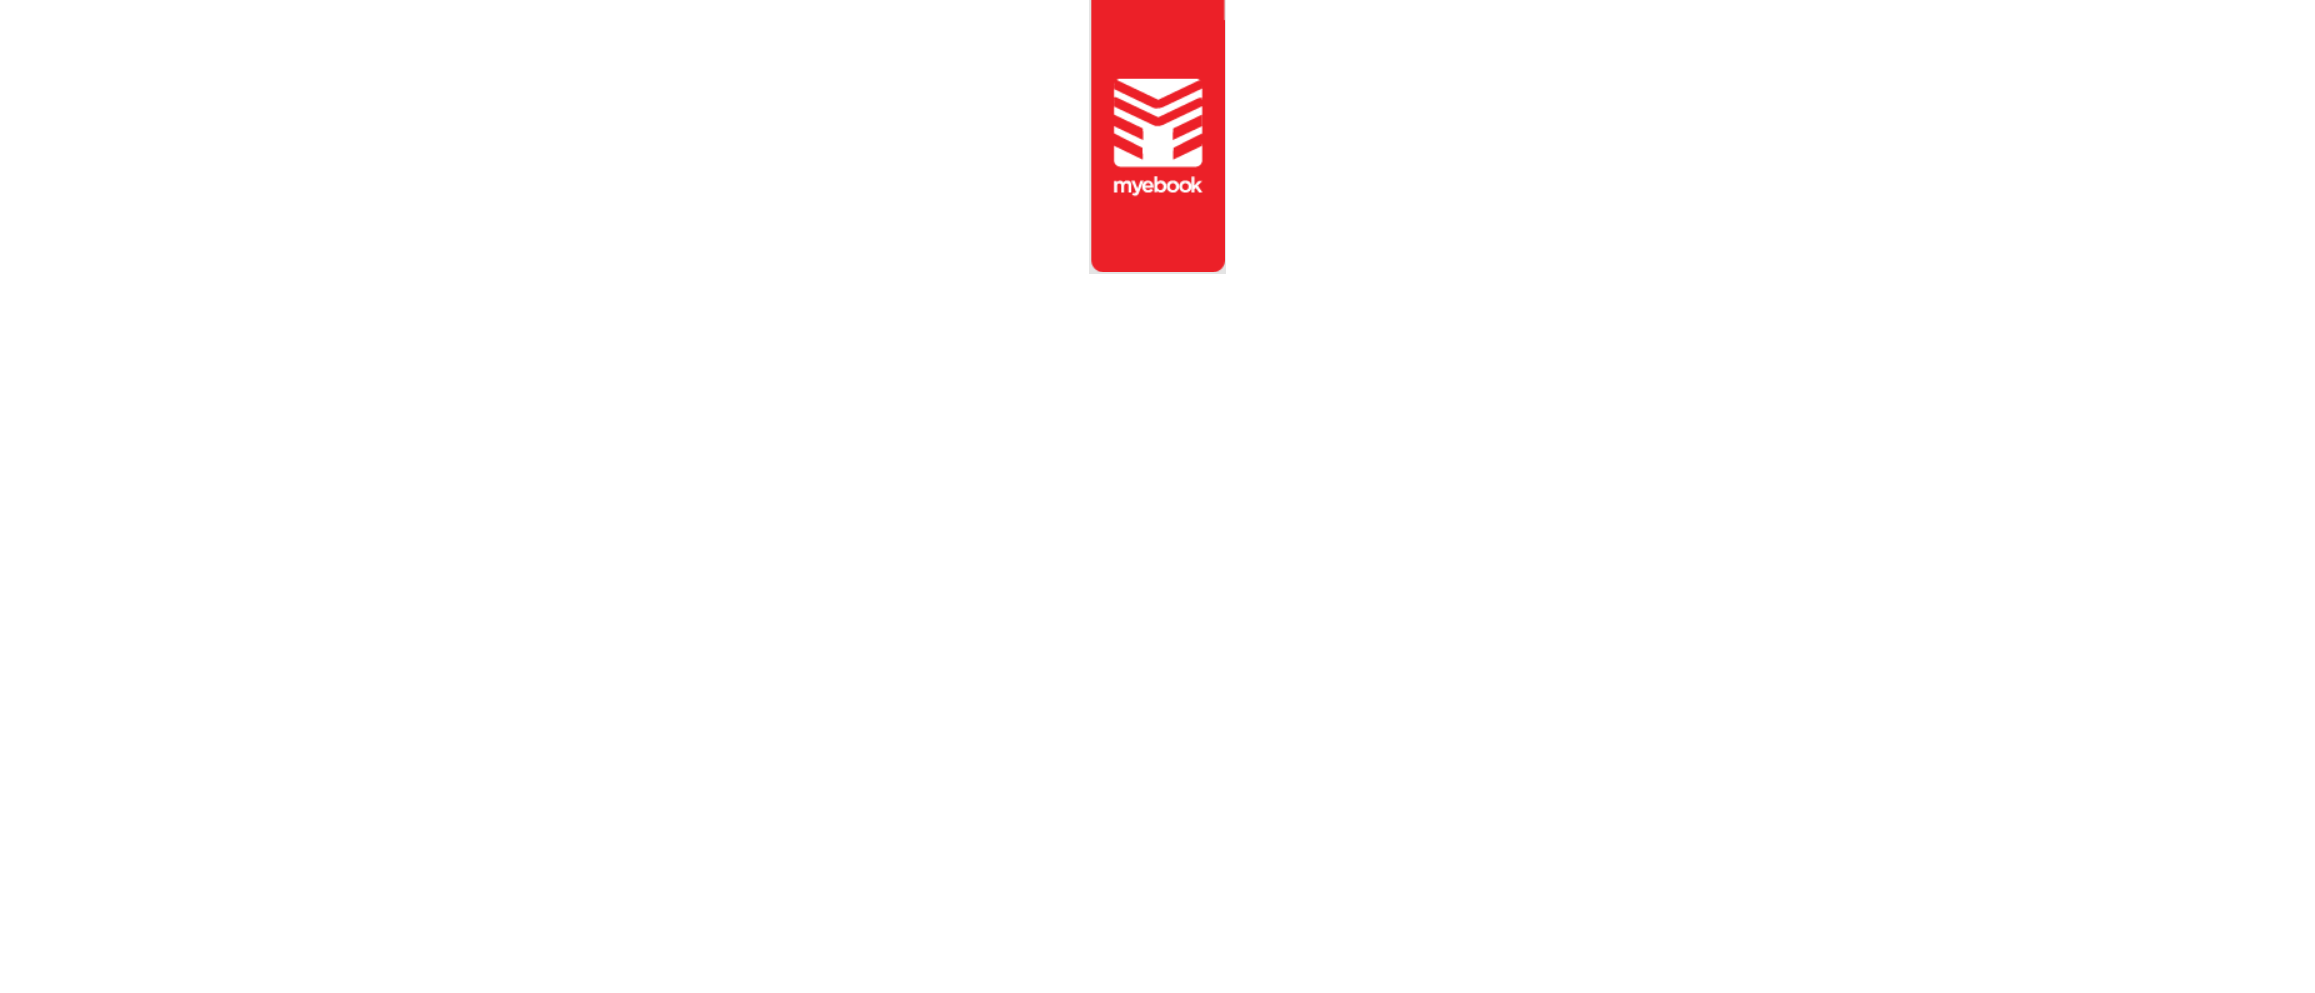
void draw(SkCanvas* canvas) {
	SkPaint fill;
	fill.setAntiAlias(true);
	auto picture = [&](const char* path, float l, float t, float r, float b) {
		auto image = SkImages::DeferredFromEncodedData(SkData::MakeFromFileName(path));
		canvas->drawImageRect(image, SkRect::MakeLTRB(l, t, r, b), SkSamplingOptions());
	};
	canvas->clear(0xFFFFFFFF);
	picture("image0.png", 1089, 0, 1226, 274);
}
